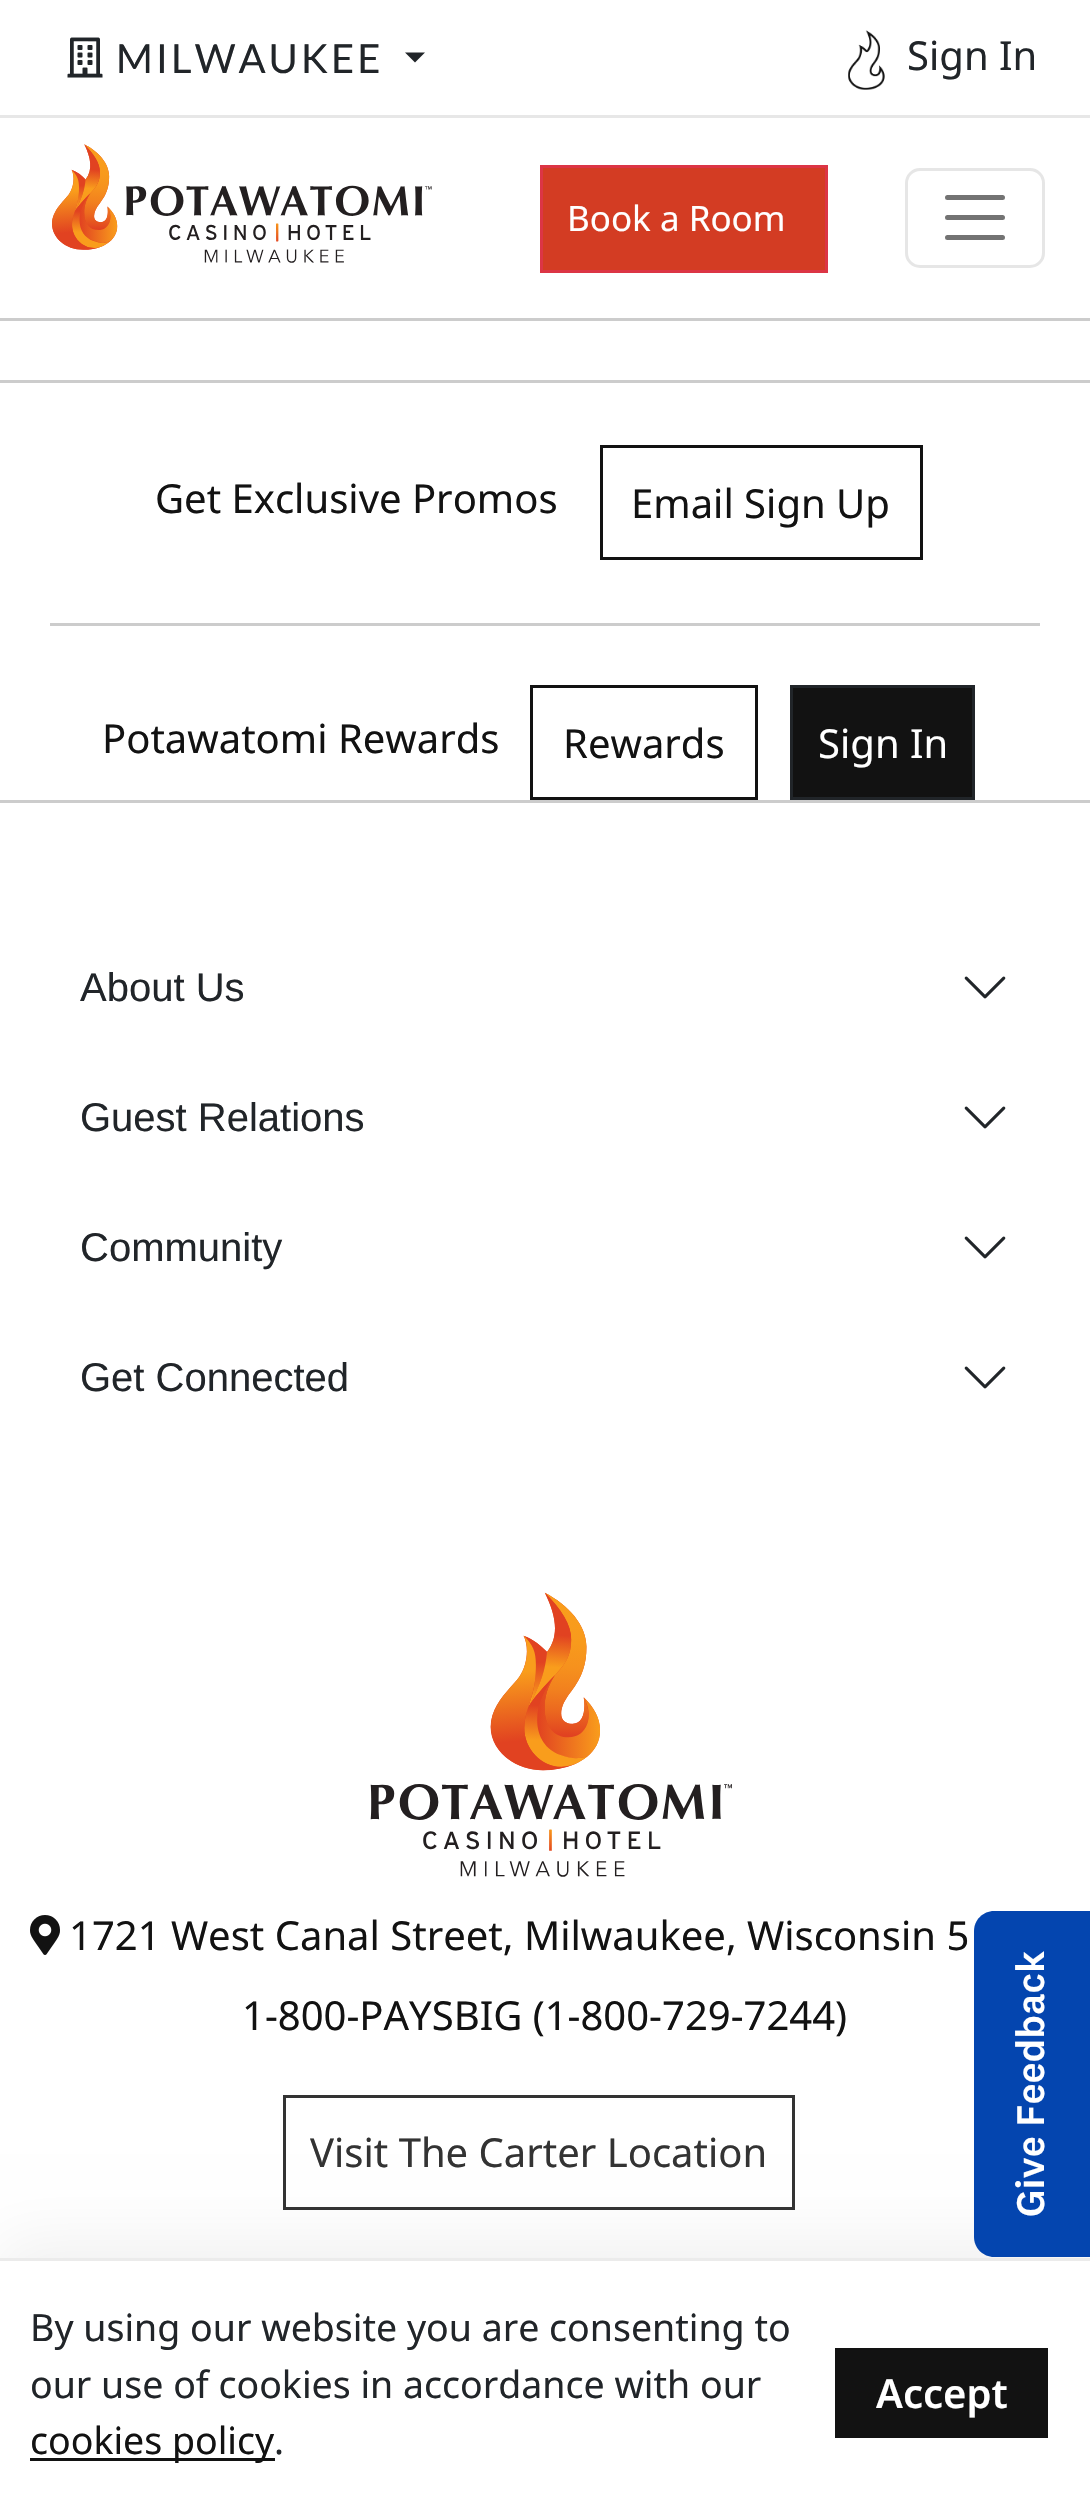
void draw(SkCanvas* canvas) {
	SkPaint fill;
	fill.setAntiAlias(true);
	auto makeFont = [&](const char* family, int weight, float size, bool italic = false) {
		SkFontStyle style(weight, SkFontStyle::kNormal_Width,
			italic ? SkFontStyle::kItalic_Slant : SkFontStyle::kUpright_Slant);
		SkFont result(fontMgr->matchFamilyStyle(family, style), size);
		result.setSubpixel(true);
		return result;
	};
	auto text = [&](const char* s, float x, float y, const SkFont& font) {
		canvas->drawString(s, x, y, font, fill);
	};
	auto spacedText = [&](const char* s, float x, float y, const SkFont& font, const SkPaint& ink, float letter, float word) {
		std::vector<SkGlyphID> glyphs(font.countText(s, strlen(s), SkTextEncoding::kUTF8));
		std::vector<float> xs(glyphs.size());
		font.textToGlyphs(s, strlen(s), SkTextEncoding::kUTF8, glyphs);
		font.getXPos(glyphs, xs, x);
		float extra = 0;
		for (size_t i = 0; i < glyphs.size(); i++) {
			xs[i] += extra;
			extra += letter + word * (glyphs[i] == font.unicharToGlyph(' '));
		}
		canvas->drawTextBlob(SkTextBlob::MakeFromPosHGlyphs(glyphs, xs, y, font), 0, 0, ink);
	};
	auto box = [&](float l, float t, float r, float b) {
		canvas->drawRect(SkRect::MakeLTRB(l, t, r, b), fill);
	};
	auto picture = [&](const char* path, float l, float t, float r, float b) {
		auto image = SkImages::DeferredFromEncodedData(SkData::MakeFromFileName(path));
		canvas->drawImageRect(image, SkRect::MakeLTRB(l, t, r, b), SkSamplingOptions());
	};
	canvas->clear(0xFFFFFFFF);
	fill.setColor(0xFFE7E7E7);
	box(0, 115, 1090, 118);
	picture("image0.png", 67, 37, 103, 78);
	fill.setColor(0xFF212529);
	canvas->drawPath(SkPathBuilder().moveTo(405, 52.5f).lineTo(425, 52.5f).lineTo(415, 62.5f).close().detach(), fill);
	picture("image1.png", 848, 30, 885, 90);
	fill.setColor(0xFFCCCCCC);
	box(0, 318, 1090, 321);
	picture("image2.png", 52, 144, 432, 263);
	fill.setColor(0xFFD33C23);
	canvas->drawRect(SkRect::MakeLTRB(541.5f, 166.5f, 826.5f, 271.5f), fill);
	fill.setStyle(SkPaint::kStroke_Style);
	fill.setStrokeWidth(3);
	fill.setColor(0xFFDC3545);
	canvas->drawRect(SkRect::MakeLTRB(541.5f, 166.5f, 826.5f, 271.5f), fill);
	fill.setColor(0xFFE6E6E6);
	canvas->drawRoundRect(SkRect::MakeLTRB(906.5f, 169.5f, 1043.5f, 266.5f), 13.5f, 13.5f, fill);
	fill.setStrokeWidth(5);
	fill.setStrokeCap(SkPaint::kRound_Cap);
	fill.setColor(0xFF737373);
	canvas->drawPath(SkPathBuilder().moveTo(947.5f, 197.5f).lineTo(1002.5f, 197.5f).moveTo(947.5f, 217.5f).lineTo(1002.5f, 217.5f).moveTo(947.5f, 237.5f).lineTo(1002.5f, 237.5f).detach(), fill);
	fill.setStyle(SkPaint::kFill_Style);
	fill.setColor(0xFFCCCCCC);
	box(0, 380, 1090, 383);
	box(0, 800, 1090, 803);
	box(50, 623, 1040, 626);
	fill.setStyle(SkPaint::kStroke_Style);
	fill.setStrokeWidth(3);
	fill.setStrokeCap(SkPaint::kButt_Cap);
	fill.setColor(0xFF121212);
	canvas->drawRect(SkRect::MakeLTRB(601.5f, 446.5f, 921.5f, 558.5f), fill);
	canvas->drawRect(SkRect::MakeLTRB(531.5f, 686.5f, 756.5f, 798.5f), fill);
	fill.setStyle(SkPaint::kFill_Style);
	canvas->drawRect(SkRect::MakeLTRB(791.5f, 686.5f, 973.5f, 798.5f), fill);
	fill.setStyle(SkPaint::kStroke_Style);
	fill.setColor(0xFF212529);
	canvas->drawRect(SkRect::MakeLTRB(791.5f, 686.5f, 973.5f, 798.5f), fill);
	picture("image3.png", 964, 976, 1006, 999);
	picture("image3.png", 964, 1106, 1006, 1129);
	picture("image3.png", 964, 1236, 1006, 1259);
	picture("image3.png", 964, 1366, 1006, 1389);
	picture("image4.png", 370, 1592, 732, 1877);
	picture("image5.png", 30, 1915, 60, 1955);
	fill.setColor(0xFF333333);
	canvas->drawRect(SkRect::MakeLTRB(284.5f, 2096.5f, 793.5f, 2208.5f), fill);
	fill.setStyle(SkPaint::kFill_Style);
	fill.setColor(0x0F000000);
	fill.setMaskFilter(SkMaskFilter::MakeBlur(kNormal_SkBlurStyle, 30));
	canvas->drawRect(SkRect::MakeLTRB(0, 2243, 1090, 2493), fill);
	fill.setMaskFilter(nullptr);
	fill.setColor(0xFFFFFFFF);
	box(0, 2261, 1090, 2506);
	fill.setColor(0xFFEBEBEB);
	box(0, 2258, 1090, 2261);
	fill.setColor(0xFF121212);
	box(30, 2458, 275, 2461);
	box(835, 2348, 1048, 2438);
	fill.setColor(0xFF0445AF);
	canvas->drawPath(SkPathBuilder().moveTo(974, 2237).lineTo(974, 1931).cubicTo(974, 1920, 983, 1911, 994, 1911).lineTo(1090, 1911).lineTo(1090, 2257).lineTo(994, 2257).cubicTo(983, 2257, 974, 2248, 974, 2237).close().detach(), fill);
	auto font1 = makeFont("Lato", 400, 40);
	fill.setColor(0xFF212529);
	spacedText("MILWAUKEE", 116, 73, font1, fill, 3, 0);
	auto font2 = makeFont("Noto Sans", 400, 40);
	text("Sign In", 907, 70, font2);
	auto font3 = makeFont("Noto Sans", 400, 35);
	fill.setColor(0xFFFFFFFF);
	text("Book a Room", 567, 231, font3);
	fill.setColor(0xFF121212);
	text("Get Exclusive Promos", 155, 513, font2);
	text("Email Sign Up", 631, 518, font2);
	text("Potawatomi Rewards", 102, 753, font2);
	text("Rewards", 563, 758, font2);
	fill.setColor(0xFFFFFFFF);
	text("Sign In", 818, 758, font2);
	auto font4 = makeFont("Liberation Sans", 400, 40);
	fill.setColor(0xFF212529);
	text("About Us", 80, 1001, font4);
	text("Guest Relations", 80, 1131, font4);
	text("Community", 80, 1261, font4);
	text("Get Connected", 80, 1391, font4);
	fill.setColor(0xFF121212);
	text("1721 West Canal Street, Milwaukee, Wisconsin 5", 69, 1950, font2);
	text("1-800-PAYSBIG (1-800-729-7244)", 242, 2030, font2);
	fill.setColor(0xFF333333);
	text("Visit The Carter Location", 310, 2167, font2);
	auto font5 = makeFont("Noto Sans", 400, 37.5f);
	fill.setColor(0xFF212529);
	text("By using our website you are consenting to", 30, 2341, font5);
	text("our use of cookies in accordance with our", 30, 2398, font5);
	fill.setColor(0xFF121212);
	text("cookies policy", 30, 2454, font5);
	fill.setColor(0xFF212529);
	text(".", 274, 2454, font5);
	auto font6 = makeFont("Noto Sans", 600, 40);
	fill.setColor(0xFFFFFFFF);
	text("Accept", 876, 2408, font6);
	auto font7 = makeFont("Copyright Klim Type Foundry", 500, 40);
	canvas->save();
	canvas->rotate(-90, 1044, 2217);
	text("Give Feedback", 1044, 2217, font7);
	canvas->restore();
}
